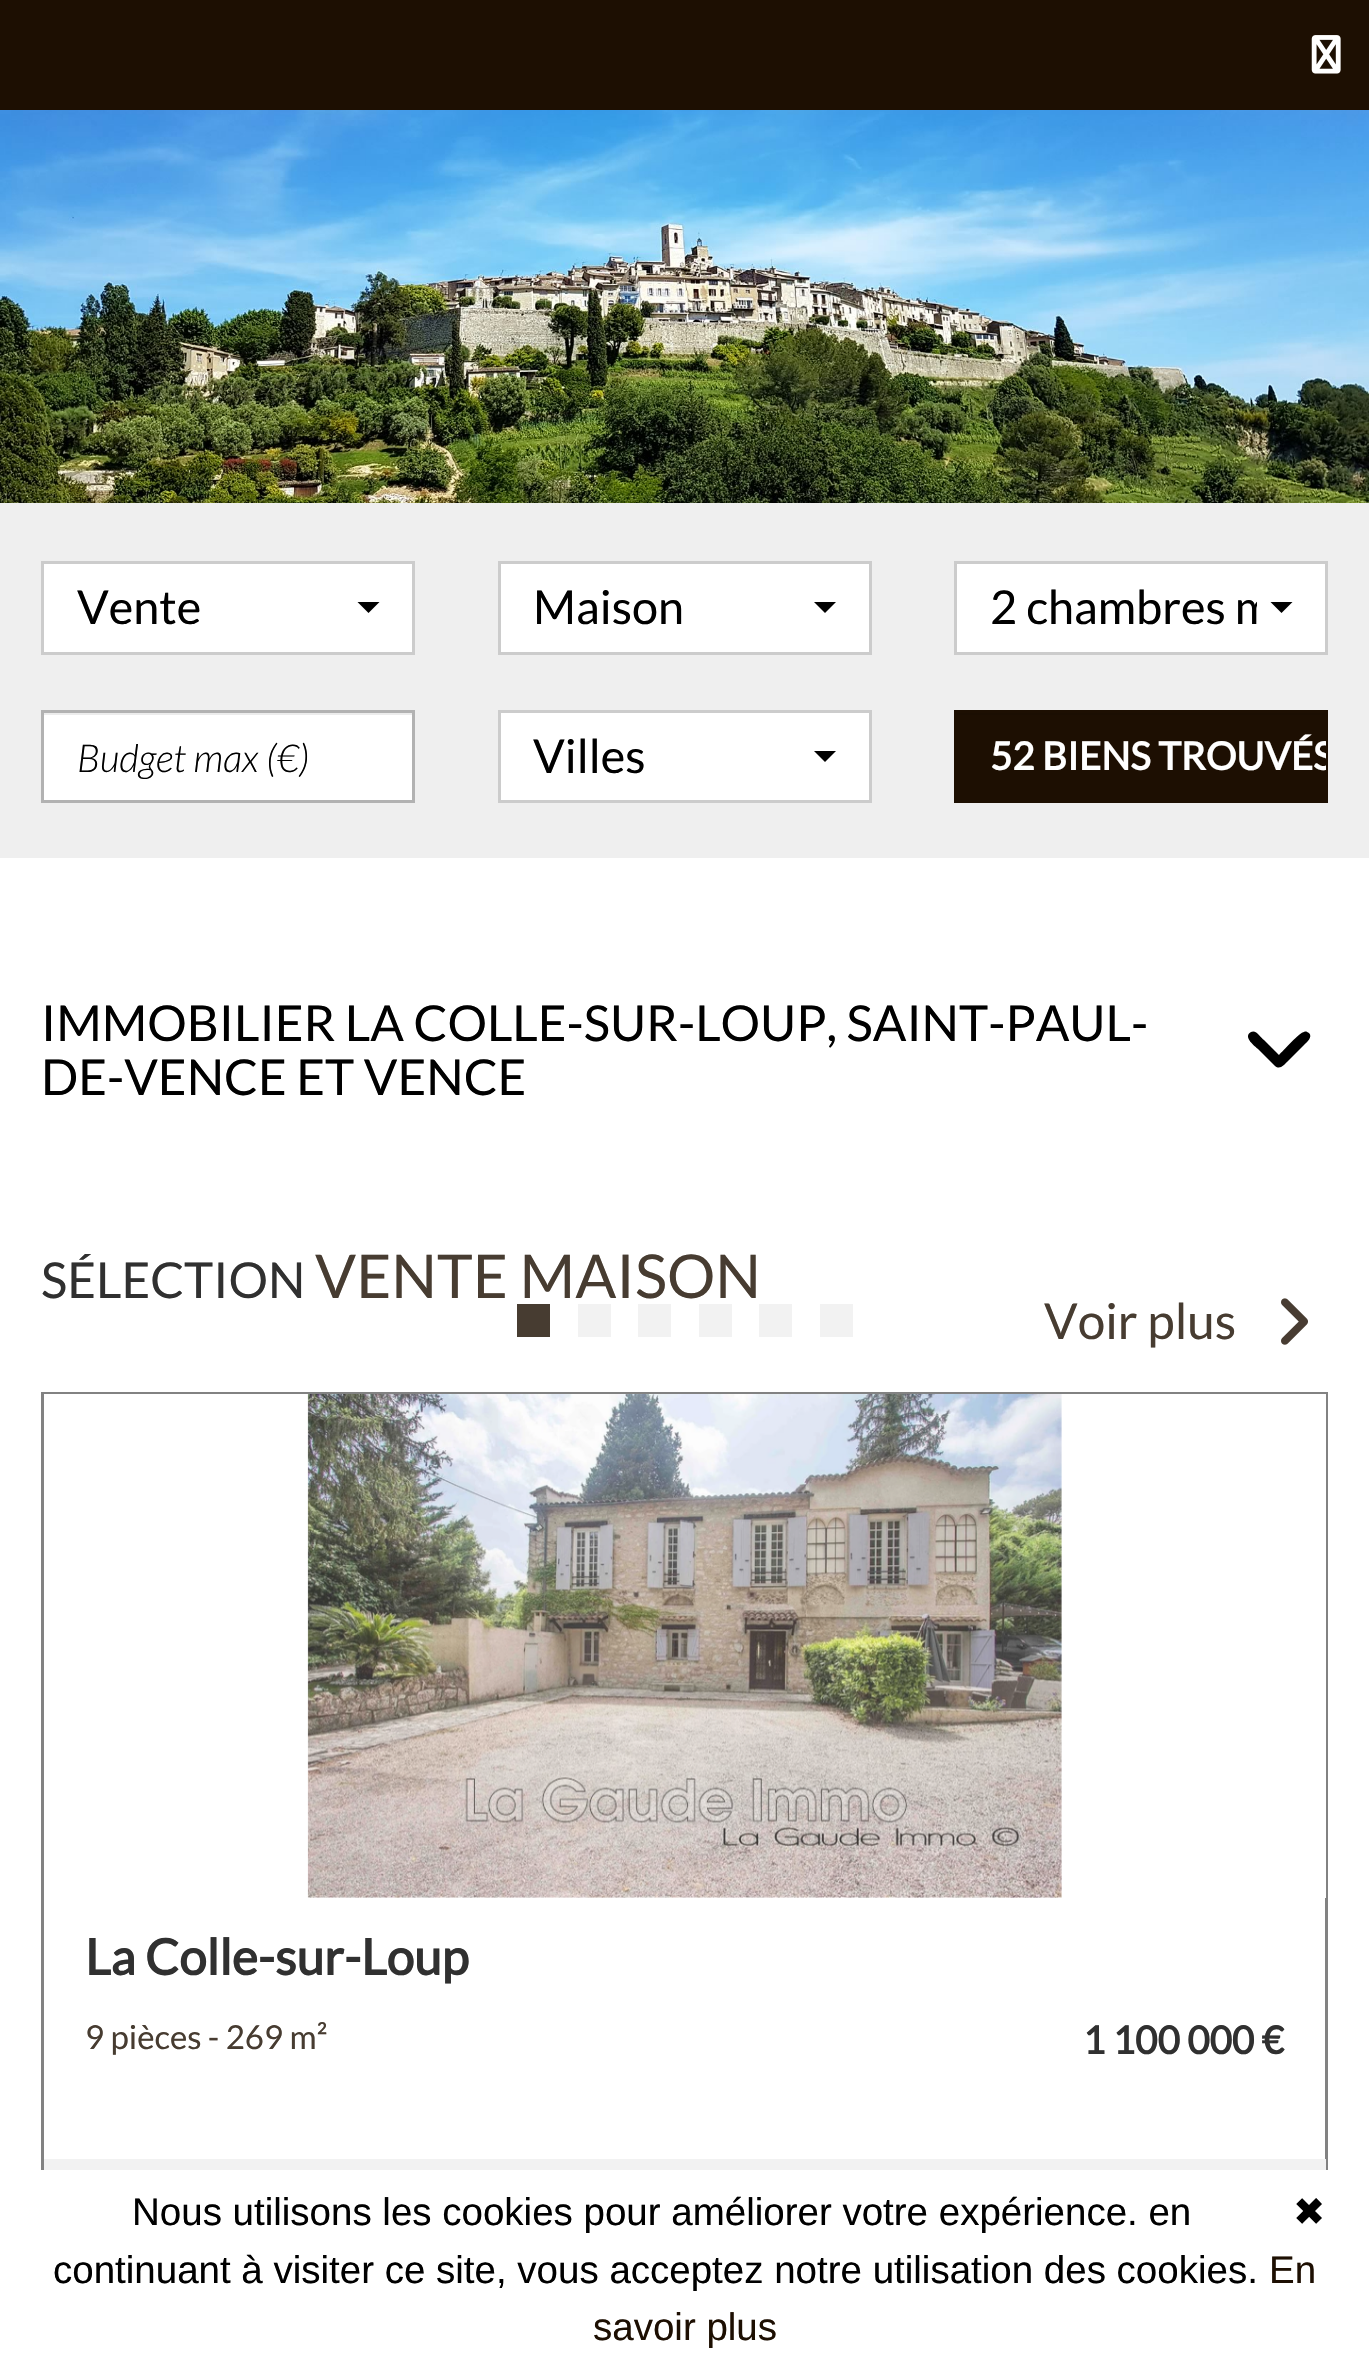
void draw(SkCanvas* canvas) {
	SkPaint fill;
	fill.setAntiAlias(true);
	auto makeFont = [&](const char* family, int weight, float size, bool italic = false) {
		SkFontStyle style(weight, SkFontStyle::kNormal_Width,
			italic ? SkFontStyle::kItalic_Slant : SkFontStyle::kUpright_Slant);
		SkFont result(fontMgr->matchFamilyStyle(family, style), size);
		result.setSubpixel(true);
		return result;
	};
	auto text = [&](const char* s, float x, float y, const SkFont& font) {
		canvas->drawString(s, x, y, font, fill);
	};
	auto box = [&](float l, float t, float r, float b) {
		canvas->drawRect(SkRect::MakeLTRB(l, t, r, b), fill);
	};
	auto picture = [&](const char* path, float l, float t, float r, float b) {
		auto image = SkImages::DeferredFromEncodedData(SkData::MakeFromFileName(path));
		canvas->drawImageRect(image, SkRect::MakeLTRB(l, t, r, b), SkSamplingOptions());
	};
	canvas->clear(0xFFFFFFFF);
	fill.setColor(0xFF1D0F02);
	box(0, 0, 1369, 110);
	picture("image0.png", 1311, 35, 1341, 74);
	picture("image1.png", 0, 110, 1369, 503);
	fill.setColor(0xFFEFEFEF);
	box(0, 503, 1369, 858);
	fill.setColor(0xFFFFFFFF);
	canvas->drawRect(SkRect::MakeLTRB(42.5f, 562.5f, 413.5f, 653.5f), fill);
	fill.setStyle(SkPaint::kStroke_Style);
	fill.setStrokeWidth(3);
	fill.setColor(0xFFCCCCCC);
	canvas->drawRect(SkRect::MakeLTRB(42.5f, 562.5f, 413.5f, 653.5f), fill);
	fill.setStyle(SkPaint::kFill_Style);
	fill.setColor(0xFF000000);
	canvas->drawPath(SkPathBuilder().moveTo(357.5f, 602).lineTo(379.5f, 602).lineTo(368.5f, 613).close().detach(), fill);
	fill.setColor(0xFFFFFFFF);
	canvas->drawRect(SkRect::MakeLTRB(499.5f, 562.5f, 870.5f, 653.5f), fill);
	fill.setStyle(SkPaint::kStroke_Style);
	fill.setColor(0xFFCCCCCC);
	canvas->drawRect(SkRect::MakeLTRB(499.5f, 562.5f, 870.5f, 653.5f), fill);
	fill.setStyle(SkPaint::kFill_Style);
	fill.setColor(0xFF000000);
	canvas->drawPath(SkPathBuilder().moveTo(814, 602).lineTo(836, 602).lineTo(825, 613).close().detach(), fill);
	fill.setColor(0xFFFFFFFF);
	canvas->drawRect(SkRect::MakeLTRB(955.5f, 562.5f, 1326.5f, 653.5f), fill);
	fill.setStyle(SkPaint::kStroke_Style);
	fill.setColor(0xFFCCCCCC);
	canvas->drawRect(SkRect::MakeLTRB(955.5f, 562.5f, 1326.5f, 653.5f), fill);
	fill.setStyle(SkPaint::kFill_Style);
	fill.setColor(0xFF000000);
	canvas->drawPath(SkPathBuilder().moveTo(1270.5f, 602).lineTo(1292.5f, 602).lineTo(1281.5f, 613).close().detach(), fill);
	fill.setColor(0xFFFFFFFF);
	box(44, 715, 412, 800);
	fill.setColor(0xFFECECEC);
	box(44, 713, 413, 715);
	fill.setStyle(SkPaint::kStroke_Style);
	fill.setColor(0xFFB2B2B2);
	canvas->drawRect(SkRect::MakeLTRB(42.5f, 711.5f, 413.5f, 801.5f), fill);
	fill.setStyle(SkPaint::kFill_Style);
	fill.setColor(0xFFFFFFFF);
	canvas->drawRect(SkRect::MakeLTRB(499.5f, 711.5f, 870.5f, 801.5f), fill);
	fill.setStyle(SkPaint::kStroke_Style);
	fill.setColor(0xFFCCCCCC);
	canvas->drawRect(SkRect::MakeLTRB(499.5f, 711.5f, 870.5f, 801.5f), fill);
	fill.setStyle(SkPaint::kFill_Style);
	fill.setColor(0xFF000000);
	canvas->drawPath(SkPathBuilder().moveTo(814, 751).lineTo(836, 751).lineTo(825, 762).close().detach(), fill);
	fill.setColor(0xFF1D0F02);
	box(957, 715, 1325, 800);
	fill.setColor(0xFF1B0E02);
	box(957, 713, 1326, 715);
	fill.setStyle(SkPaint::kStroke_Style);
	fill.setColor(0xFF1D0F02);
	canvas->drawRect(SkRect::MakeLTRB(955.5f, 711.5f, 1326.5f, 801.5f), fill);
	fill.setStyle(SkPaint::kFill_Style);
	fill.setColor(0xFF000000);
	canvas->drawPath(SkPathBuilder().moveTo(1275, 1066).cubicTo(1280, 1070, 1284, 1065, 1287, 1062).lineTo(1304, 1045).cubicTo(1307, 1042, 1313, 1037, 1309, 1033).cubicTo(1307, 1032, 1306, 1031, 1304, 1032).cubicTo(1300, 1032, 1283, 1051, 1279, 1055).lineTo(1264, 1040).cubicTo(1261, 1038, 1256, 1029, 1251, 1032).cubicTo(1242, 1037, 1256, 1047, 1258, 1049).close().detach(), fill);
	picture("image2.png", 1281, 1298, 1308, 1345);
	fill.setColor(0xFF473C31);
	box(517, 1304, 550, 1337);
	fill.setColor(0xFFF2F2F2);
	box(578, 1304, 611, 1337);
	box(638, 1304, 671, 1337);
	box(699, 1304, 732, 1337);
	box(759, 1304, 792, 1337);
	box(820, 1304, 853, 1337);
	fill.setStyle(SkPaint::kStroke_Style);
	fill.setColor(0xFF828282);
	canvas->drawRect(SkRect::MakeLTRB(42.5f, 1393.5f, 1326.5f, 2256.5f), fill);
	fill.setStyle(SkPaint::kFill_Style);
	fill.setColor(0xFFFFFFFF);
	box(44, 1394, 1326, 1898);
	picture("image3.png", 307, 1394, 1062, 1898);
	fill.setColor(0xFFF2F2F2);
	box(44, 2159, 1326, 2170);
	fill.setColor(0xFFFFFFFF);
	box(41, 2170, 1328, 2258);
	auto font1 = makeFont("Lato", 400, 46.75f);
	fill.setColor(0xFF000000);
	text("Vente", 77, 624, font1);
	text("Maison", 533, 624, font1);
	canvas->save();
	canvas->clipRect(SkRect::MakeLTRB(990, 575, 1257, 641));
	text("2 chambres m", 990, 624, font1);
	canvas->restore();
	auto font2 = makeFont("Lato", 300, 38.5f, true);
	text("Budget max (€)", 77, 772, font2);
	text("Villes", 533, 773, font1);
	canvas->save();
	canvas->clipRect(SkRect::MakeLTRB(957, 712, 1326, 800));
	auto font3 = makeFont("Lato", 700, 38.5f);
	fill.setColor(0xFFFFFFFF);
	text("52 BIENS TROUVÉS", 990, 770, font3);
	canvas->restore();
	auto font4 = makeFont("Lato", 400, 49.5f);
	fill.setColor(0xFF000000);
	text("IMMOBILIER LA COLLE-SUR-LOUP, SAINT-PAUL-", 41, 1041, font4);
	text("DE-VENCE ET VENCE", 41, 1095, font4);
	fill.setColor(0xFF303030);
	text("SÉLECTION", 41, 1298, font4);
	auto font5 = makeFont("Lato", 400, 60.5f);
	fill.setColor(0xFF473C31);
	text("VENTE MAISON", 315, 1298, font5);
	text("Voir plus", 1044, 1339, font4);
	auto font6 = makeFont("Lato", 700, 49.5f);
	fill.setColor(0xFF303030);
	text("La Colle-sur-Loup", 85, 1975, font6);
	auto font7 = makeFont("Lato", 400, 33);
	fill.setColor(0xFF473C31);
	text("9 pièces - 269 m²", 85, 2049, font7);
	fill.setColor(0xFF303030);
	text("1 100 000 €", 1083, 2054, font3);
	auto font8 = makeFont("Liberation Sans", 400, 38.5f);
	fill.setColor(0xFF000000);
	text("Nous utilisons les cookies pour améliorer votre expérience. en", 132, 2225, font8);
	auto font9 = makeFont("DejaVu Sans", 400, 38.5f);
	text("✖", 1293, 2225, font9);
	text("continuant à visiter ce site, vous acceptez notre utilisation des cookies.", 53, 2283, font8);
	fill.setColor(0xFF1D0F02);
	text("En", 1269, 2283, font8);
	text("savoir plus", 593, 2340, font8);
}
